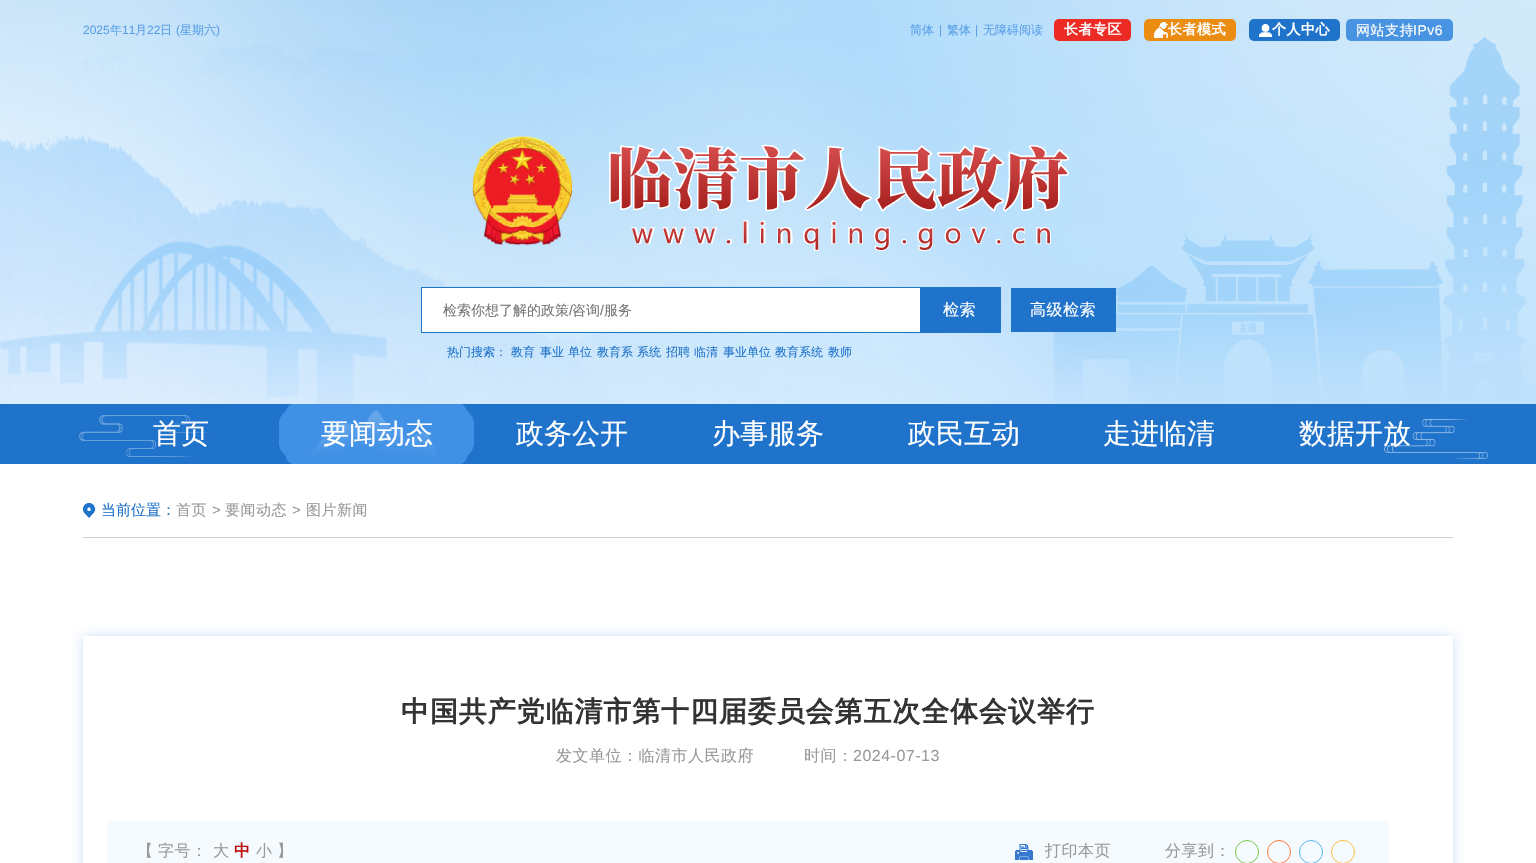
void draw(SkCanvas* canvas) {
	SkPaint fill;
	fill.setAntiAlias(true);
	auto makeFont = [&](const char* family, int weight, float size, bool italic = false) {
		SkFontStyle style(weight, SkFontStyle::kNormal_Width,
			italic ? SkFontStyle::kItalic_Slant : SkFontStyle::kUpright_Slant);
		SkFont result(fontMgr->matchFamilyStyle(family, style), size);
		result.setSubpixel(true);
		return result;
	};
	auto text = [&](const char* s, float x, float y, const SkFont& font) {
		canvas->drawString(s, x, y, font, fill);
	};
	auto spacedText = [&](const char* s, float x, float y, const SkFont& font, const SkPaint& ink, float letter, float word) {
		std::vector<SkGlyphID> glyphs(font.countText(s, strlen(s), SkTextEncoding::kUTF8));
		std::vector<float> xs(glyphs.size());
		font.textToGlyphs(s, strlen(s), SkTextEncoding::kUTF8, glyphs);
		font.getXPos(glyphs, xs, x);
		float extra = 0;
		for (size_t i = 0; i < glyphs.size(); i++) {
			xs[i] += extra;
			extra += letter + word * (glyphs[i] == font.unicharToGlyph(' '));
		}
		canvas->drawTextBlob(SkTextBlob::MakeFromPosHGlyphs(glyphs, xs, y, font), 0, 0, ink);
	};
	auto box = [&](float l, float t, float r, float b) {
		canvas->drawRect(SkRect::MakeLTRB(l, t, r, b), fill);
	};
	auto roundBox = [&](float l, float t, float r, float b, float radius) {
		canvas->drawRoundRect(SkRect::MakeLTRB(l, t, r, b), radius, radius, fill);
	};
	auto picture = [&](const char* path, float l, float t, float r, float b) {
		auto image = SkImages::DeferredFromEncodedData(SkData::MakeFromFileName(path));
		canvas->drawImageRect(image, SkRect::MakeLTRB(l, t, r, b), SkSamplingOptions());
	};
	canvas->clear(0xFFFFFFFF);
	picture("image0.png", 0, 0, 1536, 404);
	fill.setColor(0xFFED2B25);
	roundBox(1054, 19, 1131, 41, 5);
	fill.setColor(0xFFEB8C13);
	roundBox(1144, 19, 1236, 41, 5);
	picture("image1.png", 1154, 22, 1168, 38);
	fill.setColor(0xFF1F73CB);
	roundBox(1249, 19, 1340, 41, 5);
	picture("image2.png", 1259, 24, 1272, 37);
	fill.setColor(0xFF4994E2);
	roundBox(1346, 19, 1453, 41, 5);
	picture("image3.png", 472, 136, 1070, 251);
	fill.setStyle(SkPaint::kStroke_Style);
	fill.setStrokeWidth(1);
	fill.setColor(0xFF1F73CB);
	canvas->drawRect(SkRect::MakeLTRB(421.5f, 287.5f, 1000.5f, 332.5f), fill);
	fill.setStyle(SkPaint::kFill_Style);
	fill.setColor(0xFFFFFFFF);
	box(422, 288, 920, 332);
	fill.setColor(0xFF1F73CB);
	box(920, 288, 1000, 332);
	box(1011, 288, 1116, 332);
	picture("image4.png", 0, 404, 1536, 464);
	picture("image5.png", 279, 404, 474, 464);
	fill.setColor(0xFFCCCCCC);
	box(83, 537, 1453, 538);
	picture("image6.png", 83, 503, 95, 518);
	canvas->save();
	canvas->clipPath(SkPathBuilder(SkPathFillType::kEvenOdd).moveTo(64, 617).lineTo(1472, 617).lineTo(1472, 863).lineTo(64, 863).close().moveTo(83, 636).lineTo(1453, 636).lineTo(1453, 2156).lineTo(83, 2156).close().detach(), true);
	fill.setColor(0x82A1C0F6);
	fill.setMaskFilter(SkMaskFilter::MakeBlur(kNormal_SkBlurStyle, 6));
	canvas->drawRect(SkRect::MakeLTRB(83, 636, 1453, 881), fill);
	fill.setMaskFilter(nullptr);
	canvas->restore();
	fill.setColor(0xFFF5FAFF);
	box(107, 821, 1389, 863);
	picture("image7.png", 1015, 844, 1033, 860);
	fill.setStyle(SkPaint::kStroke_Style);
	fill.setColor(0xFF7BC549);
	canvas->drawCircle(1247, 852, 11.5f, fill);
	fill.setColor(0xFFFF763B);
	canvas->drawCircle(1279, 852, 11.5f, fill);
	fill.setColor(0xFF56B6E7);
	canvas->drawCircle(1311, 852, 11.5f, fill);
	fill.setColor(0xFFFDBE3D);
	canvas->drawCircle(1343, 852, 11.5f, fill);
	auto font1 = makeFont("Liberation Sans", 400, 12);
	fill.setStyle(SkPaint::kFill_Style);
	fill.setColor(0xFF589EE7);
	text("2025", 83, 34, font1);
	auto font2 = makeFont("WenQuanYi Zen Hei", 500, 12);
	text("年", 110, 34, font2);
	text("11", 122, 34, font1);
	text("月", 135, 34, font2);
	text("22", 147, 34, font1);
	text("日", 160, 34, font2);
	text("(", 176, 34, font1);
	text("星期六", 180, 34, font2);
	text(")", 216, 34, font1);
	text("简体", 910, 34, font2);
	text("|", 939, 34, font1);
	text("繁体", 947, 34, font2);
	text("|", 975, 34, font1);
	text("无障碍阅读", 983, 34, font2);
	auto font3 = makeFont("WenQuanYi Zen Hei", 700, 14);
	fill.setColor(0xFFFFFFFF);
	spacedText("长者专区", 1064, 34, font3, fill, 0.5f, 0);
	spacedText("长者模式", 1168, 34, font3, fill, 0.5f, 0);
	spacedText("个人中心", 1272, 34, font3, fill, 0.5f, 0);
	auto font4 = makeFont("WenQuanYi Zen Hei", 500, 14);
	spacedText("网站支持", 1356, 35, font4, fill, 0.5f, 0);
	auto font5 = makeFont("Liberation Sans", 400, 14);
	spacedText("IPv6", 1413, 35, font5, fill, 0.5f, 0);
	fill.setColor(0xFF757575);
	text("检索你想了解的政策", 443, 315, font4);
	text("/", 569, 315, font5);
	text("咨询", 572, 315, font4);
	text("/", 600, 315, font5);
	text("服务", 604, 315, font4);
	auto font6 = makeFont("WenQuanYi Zen Hei", 500, 16);
	fill.setColor(0xFFFFFFFF);
	spacedText("检索", 943, 315, font6, fill, 0.5f, 0);
	spacedText("高级检索", 1030, 315, font6, fill, 0.5f, 0);
	fill.setColor(0xFF1F73CB);
	text("热门搜索：", 447, 356, font2);
	text("教育", 511, 356, font2);
	text("事业", 540, 356, font2);
	text("单位", 568, 356, font2);
	text("教育系", 597, 356, font2);
	text("系统", 637, 356, font2);
	text("招聘", 666, 356, font2);
	text("临清", 694, 356, font2);
	text("事业单位", 723, 356, font2);
	text("教育系统", 775, 356, font2);
	text("教师", 828, 356, font2);
	auto font7 = makeFont("WenQuanYi Zen Hei", 500, 28);
	fill.setColor(0xFFFFFFFF);
	text("首页", 153, 443, font7);
	text("要闻动态", 321, 443, font7);
	text("政务公开", 516, 443, font7);
	text("办事服务", 712, 443, font7);
	text("政民互动", 908, 443, font7);
	text("走进临清", 1103, 443, font7);
	text("数据开放", 1299, 443, font7);
	auto font8 = makeFont("WenQuanYi Zen Hei", 500, 15);
	fill.setColor(0xFF1F73CB);
	text("当前位置：", 101, 515, font8);
	fill.setColor(0xFF999999);
	spacedText("首页", 176, 515, font8, fill, 0.5f, 0);
	auto font9 = makeFont("Liberation Sans", 400, 15);
	spacedText(">", 212, 515, font9, fill, 0.5f, 0);
	spacedText("要闻动态", 225, 515, font8, fill, 0.5f, 0);
	spacedText(">", 292, 515, font9, fill, 0.5f, 0);
	spacedText("图片新闻", 306, 515, font8, fill, 0.5f, 0);
	auto font10 = makeFont("WenQuanYi Zen Hei", 700, 28);
	fill.setColor(0xFF333333);
	spacedText("中国共产党临清市第十四届委员会第五次全体会议举行", 401, 721, font10, fill, 0.9f, 0);
	fill.setColor(0xFF999999);
	spacedText("发文单位：临清市人民政府", 556, 761, font6, fill, 0.5f, 0);
	spacedText("时间：", 804, 761, font6, fill, 0.5f, 0);
	auto font11 = makeFont("Liberation Sans", 400, 16);
	spacedText("2024-07-13", 853, 761, font11, fill, 0.5f, 0);
	spacedText("【", 137, 856, font6, fill, 0.5f, 0);
	spacedText("字号：", 158, 856, font6, fill, 0.5f, 0);
	spacedText("大", 213, 856, font6, fill, 0.5f, 0);
	auto font12 = makeFont("WenQuanYi Zen Hei", 700, 16);
	fill.setColor(0xFFBF110B);
	spacedText("中", 234, 856, font12, fill, 0.5f, 0);
	fill.setColor(0xFF999999);
	spacedText("小", 256, 856, font6, fill, 0.5f, 0);
	spacedText("】", 277, 856, font6, fill, 0.5f, 0);
	spacedText("打印本页", 1045, 856, font6, fill, 0.5f, 0);
	spacedText("分享到：", 1165, 856, font6, fill, 0.5f, 0);
}
